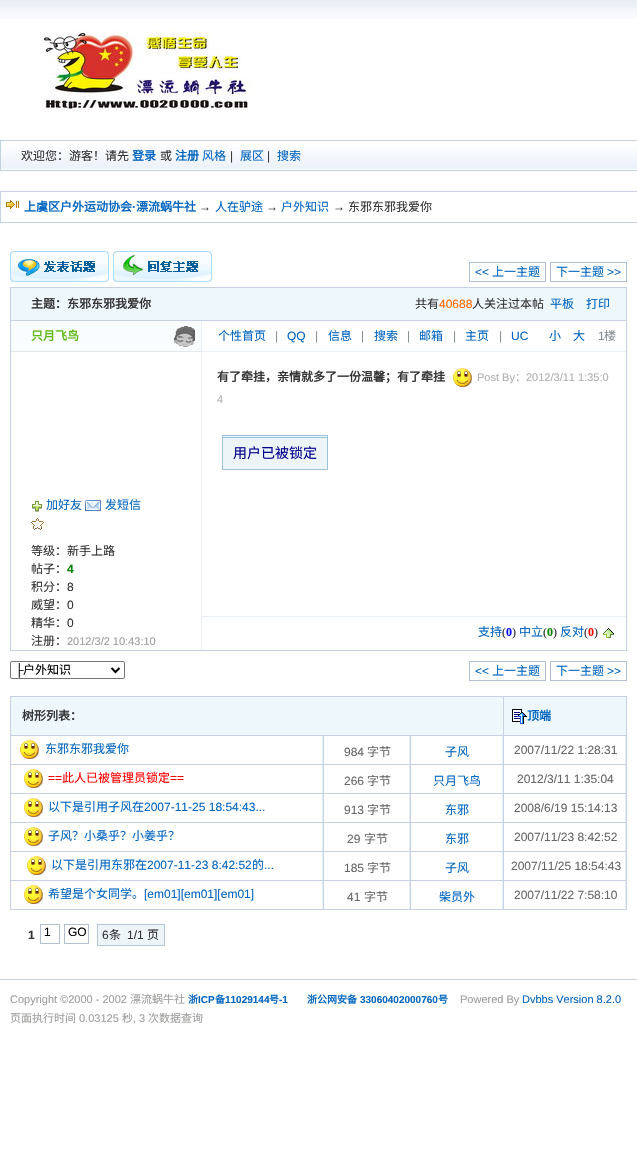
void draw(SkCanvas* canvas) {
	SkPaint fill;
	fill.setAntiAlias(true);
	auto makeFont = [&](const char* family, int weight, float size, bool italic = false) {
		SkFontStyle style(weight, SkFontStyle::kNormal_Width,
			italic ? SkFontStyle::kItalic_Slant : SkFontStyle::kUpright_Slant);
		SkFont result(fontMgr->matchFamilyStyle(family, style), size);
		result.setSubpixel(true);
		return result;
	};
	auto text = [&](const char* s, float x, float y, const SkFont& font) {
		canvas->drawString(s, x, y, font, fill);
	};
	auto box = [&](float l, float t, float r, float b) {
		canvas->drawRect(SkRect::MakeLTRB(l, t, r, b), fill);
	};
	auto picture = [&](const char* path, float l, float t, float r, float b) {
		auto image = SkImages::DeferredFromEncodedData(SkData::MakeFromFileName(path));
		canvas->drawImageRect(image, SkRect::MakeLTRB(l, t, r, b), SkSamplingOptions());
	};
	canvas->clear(0xFFFFFFFF);
	picture("image0.png", 0, 0, 637, 19);
	picture("image1.png", 41, 30, 254, 110);
	picture("image2.png", 1, 147, 637, 169);
	fill.setStyle(SkPaint::kStroke_Style);
	fill.setStrokeWidth(1);
	fill.setColor(0xFFC0D3DE);
	canvas->drawRect(SkRect::MakeLTRB(0.5f, 140.5f, 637.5f, 170.5f), fill);
	fill.setColor(0xFFC6D2E3);
	canvas->drawRect(SkRect::MakeLTRB(0.5f, 191.5f, 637.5f, 222.5f), fill);
	picture("image3.png", 6, 200, 19, 209);
	picture("image4.png", 10, 251, 109, 282);
	picture("image5.png", 113, 251, 212, 282);
	fill.setColor(0xFFB2BFCF);
	canvas->drawRect(SkRect::MakeLTRB(469.5f, 262.5f, 545.5f, 281.5f), fill);
	canvas->drawRect(SkRect::MakeLTRB(550.5f, 262.5f, 626.5f, 281.5f), fill);
	fill.setStyle(SkPaint::kFill_Style);
	fill.setColor(0xFFC6D2E3);
	box(10, 287, 627, 288);
	box(626, 287, 627, 320);
	box(10, 287, 11, 320);
	fill.setColor(0xFFEEF7FC);
	box(11, 288, 626, 320);
	fill.setStyle(SkPaint::kStroke_Style);
	fill.setColor(0xFFC6D2E3);
	canvas->drawRect(SkRect::MakeLTRB(10.5f, 320.5f, 626.5f, 650.5f), fill);
	fill.setStyle(SkPaint::kFill_Style);
	fill.setColor(0xFFFAFDFF);
	box(11, 321, 201, 351);
	fill.setColor(0xFFE9EFF4);
	box(201, 321, 202, 650);
	fill.setColor(0xFFE4E7EC);
	box(11, 351, 202, 352);
	picture("image6.png", 173, 326, 195, 347);
	fill.setColor(0xFFE9EFF4);
	box(202, 351, 626, 352);
	picture("image7.png", 453, 368, 472, 387);
	fill.setColor(0xFFEDF5F9);
	box(223, 436, 327, 469);
	fill.setColor(0xFF9CC3D9);
	box(222, 435, 328, 436);
	box(222, 437, 328, 438);
	box(327, 435, 328, 470);
	box(222, 469, 328, 470);
	box(222, 435, 223, 470);
	picture("image8.png", 32, 501, 42, 512);
	picture("image9.png", 85, 500, 101, 511);
	picture("image10.png", 31, 518, 44, 530);
	fill.setColor(0xFFE9EFF4);
	box(202, 616, 626, 617);
	picture("image11.png", 603, 628, 614, 638);
	fill.setStyle(SkPaint::kStroke_Style);
	fill.setColor(0xFF767676);
	canvas->drawRoundRect(SkRect::MakeLTRB(10.5f, 661.5f, 124.5f, 678.5f), 1.5f, 1.5f, fill);
	fill.setStrokeWidth(2);
	fill.setColor(0xFF000000);
	canvas->drawPath(SkPathBuilder().moveTo(111.5f, 668).lineTo(115.5f, 672).lineTo(119.5f, 668).detach(), fill);
	fill.setStrokeWidth(1);
	fill.setColor(0xFFB2BFCF);
	canvas->drawRect(SkRect::MakeLTRB(469.5f, 661.5f, 545.5f, 680.5f), fill);
	canvas->drawRect(SkRect::MakeLTRB(550.5f, 661.5f, 626.5f, 680.5f), fill);
	fill.setStyle(SkPaint::kFill_Style);
	fill.setColor(0xFFC6D2E3);
	box(10, 696, 627, 910);
	fill.setColor(0xFFEEF7FC);
	box(11, 697, 503, 735);
	box(504, 697, 626, 735);
	picture("image12.png", 512, 709, 527, 724);
	fill.setColor(0xFFFFFFFF);
	box(11, 736, 322, 764);
	fill.setColor(0xFFE7F0F5);
	box(322, 736, 323, 764);
	picture("image7.png", 20, 740, 39, 759);
	fill.setColor(0xFFFFFFFF);
	box(324, 736, 409, 764);
	fill.setColor(0xFFE7F0F5);
	box(409, 736, 410, 764);
	fill.setColor(0xFFFFFFFF);
	box(411, 736, 502, 764);
	fill.setColor(0xFFE7F0F5);
	box(502, 736, 503, 764);
	fill.setColor(0xFFFFFFFF);
	box(504, 736, 625, 764);
	fill.setColor(0xFFE7F0F5);
	box(625, 736, 626, 764);
	fill.setColor(0xFFFFFFFF);
	box(11, 765, 322, 793);
	fill.setColor(0xFFE7F0F5);
	box(322, 765, 323, 793);
	picture("image7.png", 24, 769, 43, 788);
	fill.setColor(0xFFFFFFFF);
	box(324, 765, 409, 793);
	fill.setColor(0xFFE7F0F5);
	box(409, 765, 410, 793);
	fill.setColor(0xFFFFFFFF);
	box(411, 765, 502, 793);
	fill.setColor(0xFFE7F0F5);
	box(502, 765, 503, 793);
	fill.setColor(0xFFFFFFFF);
	box(504, 765, 625, 793);
	fill.setColor(0xFFE7F0F5);
	box(625, 765, 626, 793);
	fill.setColor(0xFFFFFFFF);
	box(11, 794, 322, 822);
	fill.setColor(0xFFE7F0F5);
	box(322, 794, 323, 822);
	picture("image7.png", 24, 798, 43, 817);
	fill.setColor(0xFFFFFFFF);
	box(324, 794, 409, 822);
	fill.setColor(0xFFE7F0F5);
	box(409, 794, 410, 822);
	fill.setColor(0xFFFFFFFF);
	box(411, 794, 502, 822);
	fill.setColor(0xFFE7F0F5);
	box(502, 794, 503, 822);
	fill.setColor(0xFFFFFFFF);
	box(504, 794, 625, 822);
	fill.setColor(0xFFE7F0F5);
	box(625, 794, 626, 822);
	fill.setColor(0xFFFFFFFF);
	box(11, 823, 322, 851);
	fill.setColor(0xFFE7F0F5);
	box(322, 823, 323, 851);
	picture("image7.png", 24, 827, 43, 846);
	fill.setColor(0xFFFFFFFF);
	box(324, 823, 409, 851);
	fill.setColor(0xFFE7F0F5);
	box(409, 823, 410, 851);
	fill.setColor(0xFFFFFFFF);
	box(411, 823, 502, 851);
	fill.setColor(0xFFE7F0F5);
	box(502, 823, 503, 851);
	fill.setColor(0xFFFFFFFF);
	box(504, 823, 625, 851);
	fill.setColor(0xFFE7F0F5);
	box(625, 823, 626, 851);
	fill.setColor(0xFFFFFFFF);
	box(11, 852, 322, 880);
	fill.setColor(0xFFE7F0F5);
	box(322, 852, 323, 880);
	picture("image7.png", 27, 856, 46, 875);
	fill.setColor(0xFFFFFFFF);
	box(324, 852, 409, 880);
	fill.setColor(0xFFE7F0F5);
	box(409, 852, 410, 880);
	fill.setColor(0xFFFFFFFF);
	box(411, 852, 502, 880);
	fill.setColor(0xFFE7F0F5);
	box(502, 852, 503, 880);
	fill.setColor(0xFFFFFFFF);
	box(504, 852, 625, 880);
	fill.setColor(0xFFE7F0F5);
	box(625, 852, 626, 880);
	fill.setColor(0xFFFFFFFF);
	box(11, 881, 322, 909);
	fill.setColor(0xFFE7F0F5);
	box(322, 881, 323, 909);
	picture("image7.png", 24, 885, 43, 904);
	fill.setColor(0xFFFFFFFF);
	box(324, 881, 409, 909);
	fill.setColor(0xFFE7F0F5);
	box(409, 881, 410, 909);
	fill.setColor(0xFFFFFFFF);
	box(411, 881, 502, 909);
	fill.setColor(0xFFE7F0F5);
	box(502, 881, 503, 909);
	fill.setColor(0xFFFFFFFF);
	box(504, 881, 625, 909);
	fill.setColor(0xFFE7F0F5);
	box(625, 881, 626, 909);
	fill.setStyle(SkPaint::kStroke_Style);
	fill.setColor(0xFFB2BFCF);
	canvas->drawRect(SkRect::MakeLTRB(40.5f, 924.5f, 59.5f, 943.5f), fill);
	canvas->drawRect(SkRect::MakeLTRB(64.5f, 924.5f, 88.5f, 943.5f), fill);
	fill.setStyle(SkPaint::kFill_Style);
	fill.setColor(0xFFEDF5F9);
	canvas->drawRect(SkRect::MakeLTRB(97.5f, 924.5f, 164.5f, 945.5f), fill);
	fill.setStyle(SkPaint::kStroke_Style);
	fill.setColor(0xFFB4C6DA);
	canvas->drawRect(SkRect::MakeLTRB(97.5f, 924.5f, 164.5f, 945.5f), fill);
	fill.setStyle(SkPaint::kFill_Style);
	fill.setColor(0xFFC6D2E3);
	box(0, 979, 637, 980);
	auto font1 = makeFont("Noto Sans CJK SC", 400, 12);
	fill.setColor(0xFF333333);
	text("欢迎您：游客！请先", 21, 160, font1);
	auto font2 = makeFont("Noto Sans CJK SC", 700, 12);
	fill.setColor(0xFF0365BF);
	text("登录", 132, 160, font2);
	fill.setColor(0xFF333333);
	text("或", 160, 160, font1);
	fill.setColor(0xFF0365BF);
	text("注册", 175, 160, font2);
	text("风格", 202, 160, font1);
	auto font3 = makeFont("Liberation Sans", 400, 12);
	fill.setColor(0xFF333333);
	text("|", 230, 160, font3);
	fill.setColor(0xFF0365BF);
	text("展区", 240, 160, font1);
	fill.setColor(0xFF333333);
	text("|", 267, 160, font3);
	fill.setColor(0xFF0365BF);
	text("搜索", 277, 160, font1);
	text("上虞区户外运动协会", 24, 211, font2);
	auto font4 = makeFont("Liberation Sans", 700, 12);
	text("·", 132, 211, font4);
	text("漂流蜗牛社", 136, 211, font2);
	fill.setColor(0xFF333333);
	text("→", 199, 211, font3);
	fill.setColor(0xFF0365BF);
	text("人在驴途", 215, 211, font1);
	fill.setColor(0xFF333333);
	text("→", 266, 211, font3);
	fill.setColor(0xFF0365BF);
	text("户外知识", 281, 211, font1);
	fill.setColor(0xFF333333);
	text("→", 333, 211, font3);
	text("东邪东邪我爱你", 348, 211, font1);
	fill.setColor(0xFF0365BF);
	text("<<", 475, 276, font3);
	text("上一主题", 492, 276, font1);
	text("下一主题", 556, 276, font1);
	text(">>", 607, 276, font3);
	fill.setColor(0xFF333333);
	text("主题：东邪东邪我爱你", 31, 308, font2);
	text("共有", 415, 308, font1);
	fill.setColor(0xFFFF6600);
	text("40688", 439, 308, font3);
	fill.setColor(0xFF333333);
	text("人关注过本帖", 472, 308, font1);
	fill.setColor(0xFF0365BF);
	text("平板", 550, 308, font1);
	text("打印", 586, 308, font1);
	fill.setColor(0xFF61B713);
	text("只月飞鸟", 31, 340, font2);
	fill.setColor(0xFF0365BF);
	text("个性首页", 218, 340, font1);
	fill.setColor(0xFF858D92);
	text("|", 275, 340, font3);
	fill.setColor(0xFF0365BF);
	text("QQ", 287, 340, font3);
	fill.setColor(0xFF858D92);
	text("|", 315, 340, font3);
	fill.setColor(0xFF0365BF);
	text("信息", 328, 340, font1);
	fill.setColor(0xFF858D92);
	text("|", 361, 340, font3);
	fill.setColor(0xFF0365BF);
	text("搜索", 374, 340, font1);
	fill.setColor(0xFF858D92);
	text("|", 407, 340, font3);
	fill.setColor(0xFF0365BF);
	text("邮箱", 419, 340, font1);
	fill.setColor(0xFF858D92);
	text("|", 453, 340, font3);
	fill.setColor(0xFF0365BF);
	text("主页", 465, 340, font1);
	fill.setColor(0xFF858D92);
	text("|", 499, 340, font3);
	fill.setColor(0xFF0365BF);
	text("UC", 511, 340, font3);
	text("小", 549, 340, font1);
	text("大", 573, 340, font1);
	fill.setColor(0xFF858D92);
	text("1", 598, 340, font3);
	text("楼", 604, 340, font1);
	fill.setColor(0xFF333333);
	text("有了牵挂，亲情就多了一份温馨；有了牵挂", 217, 381, font2);
	auto font5 = makeFont("Liberation Sans", 400, 11);
	fill.setColor(0xFFAFAFAF);
	text("Post By", 477, 381, font5);
	auto font6 = makeFont("Noto Sans CJK SC", 400, 11);
	text("：", 515, 381, font6);
	text("2012/3/11 1:35:0", 526, 381, font5);
	text("4", 217, 403, font5);
	auto font7 = makeFont("Noto Sans CJK SC", 400, 14);
	fill.setColor(0xFF00008B);
	text("用户已被锁定", 233, 458, font7);
	fill.setColor(0xFF0365BF);
	text("加好友", 46, 509, font1);
	text("发短信", 105, 509, font1);
	fill.setColor(0xFF333333);
	text("等级：新手上路", 31, 555, font1);
	text("帖子：", 31, 573, font1);
	fill.setColor(0xFF008000);
	text("4", 67, 573, font4);
	fill.setColor(0xFF333333);
	text("积分：", 31, 591, font1);
	text("8", 67, 591, font3);
	text("威望：", 31, 609, font1);
	text("0", 67, 609, font3);
	text("精华：", 31, 627, font1);
	text("0", 67, 627, font3);
	text("注册：", 31, 645, font1);
	fill.setColor(0xFF9D9D9B);
	text("2012/3/2 10:43:10", 67, 645, font5);
	fill.setColor(0xFF0365BF);
	text("支持", 478, 636, font1);
	auto font8 = makeFont("Liberation Serif", 400, 12);
	fill.setColor(0xFF333333);
	text("(", 502, 636, font8);
	auto font9 = makeFont("Liberation Serif", 700, 12);
	fill.setColor(0xFF0000FF);
	text("0", 506, 636, font9);
	fill.setColor(0xFF333333);
	text(")", 512, 636, font8);
	fill.setColor(0xFF0365BF);
	text("中立", 519, 636, font1);
	fill.setColor(0xFF333333);
	text("(", 543, 636, font8);
	fill.setColor(0xFF008000);
	text("0", 547, 636, font9);
	fill.setColor(0xFF333333);
	text(")", 553, 636, font8);
	fill.setColor(0xFF0365BF);
	text("反对", 560, 636, font1);
	fill.setColor(0xFF333333);
	text("(", 584, 636, font8);
	fill.setColor(0xFFFF0000);
	text("0", 588, 636, font9);
	fill.setColor(0xFF333333);
	text(")", 594, 636, font8);
	fill.setColor(0xFF000000);
	text("├", 15, 674, font3);
	text("户外知识", 23, 674, font1);
	fill.setColor(0xFF0365BF);
	text("<<", 475, 675, font3);
	text("上一主题", 492, 675, font1);
	text("下一主题", 556, 675, font1);
	text(">>", 607, 675, font3);
	fill.setColor(0xFF333333);
	text("树形列表：", 22, 720, font2);
	fill.setColor(0xFF0365BF);
	text("顶端", 527, 720, font2);
	text("东邪东邪我爱你", 45, 753, font1);
	fill.setColor(0xFF666666);
	text("984", 344, 756, font3);
	text("字节", 367, 756, font1);
	fill.setColor(0xFF0365BF);
	text("子风", 445, 756, font1);
	fill.setColor(0xFF666666);
	text("2007/11/22 1:28:31", 514, 754, font3);
	fill.setColor(0xFFFF0000);
	text("==", 48, 782, font3);
	text("此人已被管理员锁定", 62, 782, font1);
	text("==", 170, 782, font3);
	fill.setColor(0xFF666666);
	text("266", 344, 785, font3);
	text("字节", 367, 785, font1);
	fill.setColor(0xFF0365BF);
	text("只月飞鸟", 433, 785, font1);
	fill.setColor(0xFF666666);
	text("2012/3/11 1:35:04", 517, 783, font3);
	fill.setColor(0xFF0365BF);
	text("以下是引用子风在", 48, 811, font1);
	text("2007-11-25 18:54:43...", 144, 811, font3);
	fill.setColor(0xFF666666);
	text("913", 344, 814, font3);
	text("字节", 367, 814, font1);
	fill.setColor(0xFF0365BF);
	text("东邪", 445, 814, font1);
	fill.setColor(0xFF666666);
	text("2008/6/19 15:14:13", 514, 812, font3);
	fill.setColor(0xFF0365BF);
	text("子风？小桑乎？小姜乎？", 48, 840, font1);
	fill.setColor(0xFF666666);
	text("29", 347, 843, font3);
	text("字节", 364, 843, font1);
	fill.setColor(0xFF0365BF);
	text("东邪", 445, 843, font1);
	fill.setColor(0xFF666666);
	text("2007/11/23 8:42:52", 514, 841, font3);
	fill.setColor(0xFF0365BF);
	text("以下是引用东邪在", 51, 869, font1);
	text("2007-11-23 8:42:52", 147, 869, font3);
	text("的", 252, 869, font1);
	text("...", 264, 869, font3);
	fill.setColor(0xFF666666);
	text("185", 344, 872, font3);
	text("字节", 367, 872, font1);
	fill.setColor(0xFF0365BF);
	text("子风", 445, 872, font1);
	fill.setColor(0xFF666666);
	text("2007/11/25 18:54:43", 511, 870, font3);
	fill.setColor(0xFF0365BF);
	text("希望是个女同学。", 48, 898, font1);
	text("[em01][em01][em01]", 144, 898, font3);
	fill.setColor(0xFF666666);
	text("41", 347, 901, font3);
	text("字节", 364, 901, font1);
	fill.setColor(0xFF0365BF);
	text("柴员外", 439, 901, font1);
	fill.setColor(0xFF666666);
	text("2007/11/22 7:58:10", 514, 899, font3);
	fill.setColor(0xFF333333);
	text("1", 28, 939, font4);
	fill.setColor(0xFF000000);
	text("1", 44, 936, font3);
	text("GO", 68, 936, font3);
	fill.setColor(0xFF333333);
	text("6", 102, 939, font3);
	text("条", 109, 939, font1);
	text("1/1", 127, 939, font3);
	text("页", 147, 939, font1);
	fill.setColor(0xFF9D9D9B);
	text("Copyright ©2000 - 2002", 10, 1003, font5);
	text("漂流蜗牛社", 130, 1003, font6);
	auto font10 = makeFont("Noto Sans CJK SC", 700, 10);
	fill.setColor(0xFF0365BF);
	text("浙", 188, 1003, font10);
	auto font11 = makeFont("Liberation Sans", 700, 10);
	text("ICP", 198, 1003, font11);
	text("备", 215, 1003, font10);
	text("11029144", 225, 1003, font11);
	text("号", 269, 1003, font10);
	text("-1", 279, 1003, font11);
	text("浙公网安备", 307, 1003, font10);
	text("33060402000760", 360, 1003, font11);
	text("号", 438, 1003, font10);
	fill.setColor(0xFF9D9D9B);
	text("Powered By", 460, 1003, font5);
	fill.setColor(0xFF0365BF);
	text("Dvbbs Version 8.2.0", 522, 1003, font5);
	fill.setColor(0xFF9D9D9B);
	text("页面执行时间", 10, 1022, font6);
	text("0.03125", 79, 1022, font5);
	text("秒", 122, 1022, font6);
	text(", 3", 133, 1022, font5);
	text("次数据查询", 148, 1022, font6);
}
